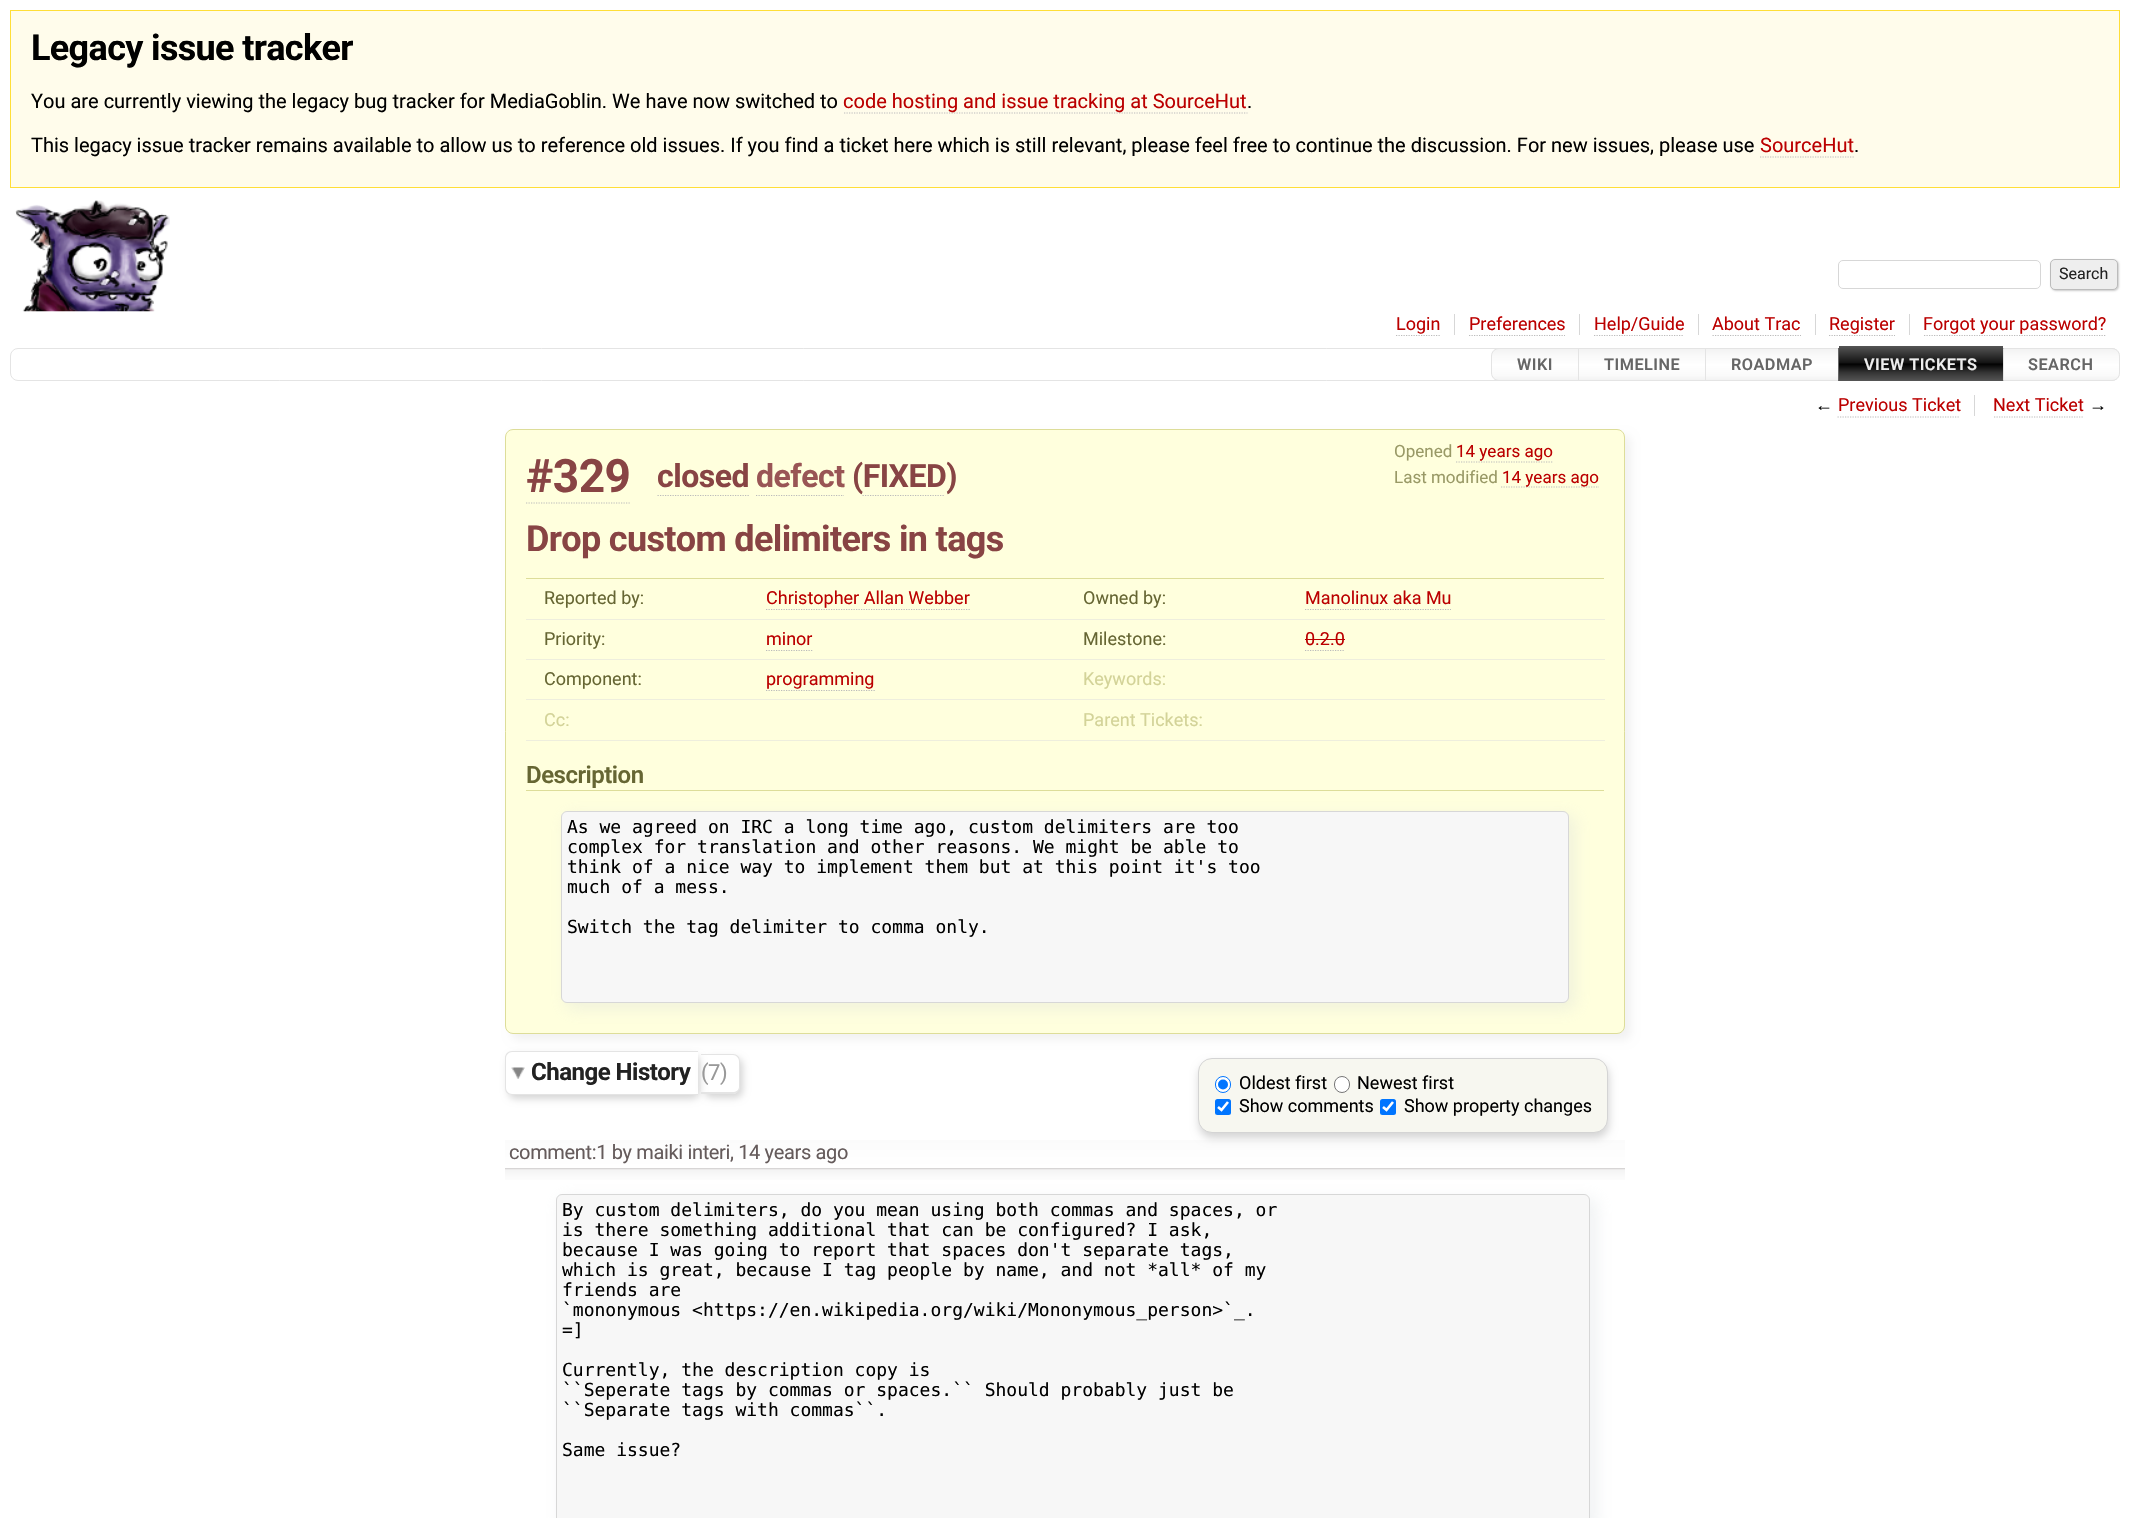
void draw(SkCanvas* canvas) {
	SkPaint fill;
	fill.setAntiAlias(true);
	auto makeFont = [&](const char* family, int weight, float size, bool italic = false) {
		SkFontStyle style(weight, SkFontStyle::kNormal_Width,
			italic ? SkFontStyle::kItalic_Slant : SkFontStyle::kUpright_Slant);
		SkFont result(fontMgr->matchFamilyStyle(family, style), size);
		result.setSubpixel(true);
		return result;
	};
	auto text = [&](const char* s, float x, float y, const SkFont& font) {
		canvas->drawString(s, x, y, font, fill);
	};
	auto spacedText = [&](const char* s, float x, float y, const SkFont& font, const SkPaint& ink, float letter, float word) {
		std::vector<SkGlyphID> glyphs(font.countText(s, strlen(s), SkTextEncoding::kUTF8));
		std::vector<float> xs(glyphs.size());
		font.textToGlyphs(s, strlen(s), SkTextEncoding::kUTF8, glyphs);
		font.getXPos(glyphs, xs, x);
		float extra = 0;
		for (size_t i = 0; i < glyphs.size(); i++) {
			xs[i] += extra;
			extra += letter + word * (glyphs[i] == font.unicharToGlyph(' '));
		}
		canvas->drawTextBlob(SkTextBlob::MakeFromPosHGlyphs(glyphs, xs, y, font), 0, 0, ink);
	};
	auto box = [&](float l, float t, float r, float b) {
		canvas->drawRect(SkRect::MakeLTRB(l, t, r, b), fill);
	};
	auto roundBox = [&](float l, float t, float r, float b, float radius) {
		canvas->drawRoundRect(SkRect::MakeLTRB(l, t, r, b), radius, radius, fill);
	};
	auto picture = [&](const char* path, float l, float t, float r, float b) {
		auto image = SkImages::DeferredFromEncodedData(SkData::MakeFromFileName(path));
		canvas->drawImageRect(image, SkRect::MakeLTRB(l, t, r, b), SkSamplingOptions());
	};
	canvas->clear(0xFFFFFFFF);
	fill.setColor(0xFFFFFCEB);
	canvas->drawRect(SkRect::MakeLTRB(10.5f, 10.5f, 2119.5f, 187.5f), fill);
	fill.setStyle(SkPaint::kStroke_Style);
	fill.setStrokeWidth(1);
	fill.setColor(0xFFFFDE37);
	canvas->drawRect(SkRect::MakeLTRB(10.5f, 10.5f, 2119.5f, 187.5f), fill);
	fill.setStrokeWidth(1.2f);
	fill.setColor(0xFFBBBBBB);
	fill.setPathEffect(SkDashPathEffect::Make({{1.25f, 1.25f}}, 0));
	canvas->drawPath(SkPathBuilder().moveTo(844, 113).lineTo(1247.5f, 113).detach(), fill);
	fill.setPathEffect(nullptr);
	fill.setPathEffect(SkDashPathEffect::Make({{1.25f, 1.25f}}, 0));
	canvas->drawPath(SkPathBuilder().moveTo(1760, 157).lineTo(1854, 157).detach(), fill);
	fill.setPathEffect(nullptr);
	picture("image0.png", 15, 200, 170, 312);
	fill.setStrokeWidth(1);
	fill.setColor(0xFFD7D7D7);
	canvas->drawRoundRect(SkRect::MakeLTRB(1838.5f, 260.5f, 2040.5f, 288.5f), 4.5f, 4.5f, fill);
	fill.setStyle(SkPaint::kFill_Style);
	fill.setColor(0xFFCCCCCC);
	fill.setMaskFilter(SkMaskFilter::MakeBlur(kNormal_SkBlurStyle, 1));
	canvas->drawRoundRect(SkRect::MakeLTRB(2051, 260, 2119, 291), 5, 5, fill);
	fill.setMaskFilter(nullptr);
	fill.setColor(0xFFEEEEEE);
	canvas->drawRoundRect(SkRect::MakeLTRB(2050.5f, 259.5f, 2117.5f, 289.5f), 4.5f, 4.5f, fill);
	fill.setStyle(SkPaint::kStroke_Style);
	fill.setColor(0xFFBBBBBB);
	canvas->drawRoundRect(SkRect::MakeLTRB(2050.5f, 259.5f, 2117.5f, 289.5f), 4.5f, 4.5f, fill);
	fill.setStyle(SkPaint::kFill_Style);
	fill.setColor(0xFFD7D7D7);
	box(1454, 314, 1455, 335);
	fill.setStyle(SkPaint::kStroke_Style);
	fill.setStrokeWidth(1.2f);
	fill.setColor(0xFFBBBBBB);
	fill.setPathEffect(SkDashPathEffect::Make({{1.25f, 1.25f}}, 0));
	canvas->drawPath(SkPathBuilder().moveTo(1396, 335.5f).lineTo(1441, 335.5f).detach(), fill);
	fill.setPathEffect(nullptr);
	fill.setStyle(SkPaint::kFill_Style);
	fill.setColor(0xFFD7D7D7);
	box(1579, 314, 1580, 335);
	fill.setStyle(SkPaint::kStroke_Style);
	fill.setColor(0xFFBBBBBB);
	fill.setPathEffect(SkDashPathEffect::Make({{1.25f, 1.25f}}, 0));
	canvas->drawPath(SkPathBuilder().moveTo(1469, 335.5f).lineTo(1565, 335.5f).detach(), fill);
	fill.setPathEffect(nullptr);
	fill.setStyle(SkPaint::kFill_Style);
	fill.setColor(0xFFD7D7D7);
	box(1698, 314, 1699, 335);
	fill.setStyle(SkPaint::kStroke_Style);
	fill.setColor(0xFFBBBBBB);
	fill.setPathEffect(SkDashPathEffect::Make({{1.25f, 1.25f}}, 0));
	canvas->drawPath(SkPathBuilder().moveTo(1594, 335.5f).lineTo(1684, 335.5f).detach(), fill);
	fill.setPathEffect(nullptr);
	fill.setStyle(SkPaint::kFill_Style);
	fill.setColor(0xFFD7D7D7);
	box(1815, 314, 1816, 335);
	fill.setStyle(SkPaint::kStroke_Style);
	fill.setColor(0xFFBBBBBB);
	fill.setPathEffect(SkDashPathEffect::Make({{1.25f, 1.25f}}, 0));
	canvas->drawPath(SkPathBuilder().moveTo(1712.5f, 335.5f).lineTo(1801, 335.5f).detach(), fill);
	fill.setPathEffect(nullptr);
	fill.setStyle(SkPaint::kFill_Style);
	fill.setColor(0xFFD7D7D7);
	box(1909, 314, 1910, 335);
	fill.setStyle(SkPaint::kStroke_Style);
	fill.setColor(0xFFBBBBBB);
	fill.setPathEffect(SkDashPathEffect::Make({{1.25f, 1.25f}}, 0));
	canvas->drawPath(SkPathBuilder().moveTo(1829, 335.5f).lineTo(1895, 335.5f).detach(), fill);
	fill.setPathEffect(nullptr);
	fill.setPathEffect(SkDashPathEffect::Make({{1.25f, 1.25f}}, 0));
	canvas->drawPath(SkPathBuilder().moveTo(1924, 335.5f).lineTo(2106, 335.5f).detach(), fill);
	fill.setPathEffect(nullptr);
	fill.setStrokeWidth(1);
	fill.setColor(0xFFE4E4E4);
	canvas->drawRoundRect(SkRect::MakeLTRB(10.5f, 348.5f, 2119.5f, 380.5f), 7.5f, 7.5f, fill);
	canvas->save();
	canvas->clipPath(SkPathBuilder().moveTo(1499, 348).lineTo(1580, 348).lineTo(1580, 381).lineTo(1499, 381).cubicTo(1494.5f, 381, 1491, 377.5f, 1491, 373).lineTo(1491, 356).cubicTo(1491, 351.5f, 1494.5f, 348, 1499, 348).close().detach(), true);
	fill.setStyle(SkPaint::kFill_Style);
	{
		const SkColor colors[] = {0xFFF2F2F2, 0xFFFAFAFA, 0xFFFEFEFE, 0xFFFFFFFF, 0xFFFAFAFA, 0xFFF2F2F2};
		const float stops[] = {0, 0.25f, 0.49f, 0.51f, 0.85f, 1};
		const SkPoint ends[] = {{1536, 349}, {1536, 380}};
		fill.setShader(SkGradientShader::MakeLinear(ends, colors, stops, 6, SkTileMode::kClamp));
		fill.setAlpha(255);
	}
	box(1491, 349, 1578, 380);
	canvas->restore();
	fill.setStyle(SkPaint::kStroke_Style);
	fill.setShader(nullptr);
	fill.setColor(0xFFE4E4E4);
	canvas->drawPath(SkPathBuilder().moveTo(1499, 348.5f).lineTo(1579.5f, 348.5f).lineTo(1579.5f, 380.5f).lineTo(1499, 380.5f).cubicTo(1495, 380.5f, 1491.5f, 377, 1491.5f, 373).lineTo(1491.5f, 356).cubicTo(1491.5f, 352, 1495, 348.5f, 1499, 348.5f).close().detach(), fill);
	fill.setStyle(SkPaint::kFill_Style);
	{
		const SkColor colors[] = {0xFFF2F2F2, 0xFFFAFAFA, 0xFFFEFEFE, 0xFFFFFFFF, 0xFFFAFAFA, 0xFFF2F2F2};
		const float stops[] = {0, 0.25f, 0.49f, 0.51f, 0.85f, 1};
		const SkPoint ends[] = {{1642, 349}, {1642, 380}};
		fill.setShader(SkGradientShader::MakeLinear(ends, colors, stops, 6, SkTileMode::kClamp));
		fill.setAlpha(255);
	}
	box(1579, 349, 1705, 380);
	fill.setStyle(SkPaint::kStroke_Style);
	fill.setShader(nullptr);
	fill.setColor(0xFFE4E4E4);
	canvas->drawRect(SkRect::MakeLTRB(1578.5f, 348.5f, 1705.5f, 380.5f), fill);
	fill.setStyle(SkPaint::kFill_Style);
	{
		const SkColor colors[] = {0xFFF2F2F2, 0xFFFAFAFA, 0xFFFEFEFE, 0xFFFFFFFF, 0xFFFAFAFA, 0xFFF2F2F2};
		const float stops[] = {0, 0.25f, 0.49f, 0.51f, 0.85f, 1};
		const SkPoint ends[] = {{1773, 349}, {1773, 380}};
		fill.setShader(SkGradientShader::MakeLinear(ends, colors, stops, 6, SkTileMode::kClamp));
		fill.setAlpha(255);
	}
	box(1706, 349, 1838, 380);
	fill.setStyle(SkPaint::kStroke_Style);
	fill.setShader(nullptr);
	fill.setColor(0xFFE4E4E4);
	canvas->drawRect(SkRect::MakeLTRB(1705.5f, 348.5f, 1839.5f, 380.5f), fill);
	fill.setColor(0xFF666666);
	canvas->drawRect(SkRect::MakeLTRB(1838.5f, 348.5f, 2003.5f, 380.5f), fill);
	fill.setStyle(SkPaint::kFill_Style);
	{
		const SkColor colors[] = {0xFF555555, 0xFF333333, 0xFF111111, 0xFF000000, 0xFF333333, 0xFF555555};
		const float stops[] = {0, 0.25f, 0.49f, 0.51f, 0.75f, 1};
		const SkPoint ends[] = {{1921, 346}, {1921, 381}};
		fill.setShader(SkGradientShader::MakeLinear(ends, colors, stops, 6, SkTileMode::kClamp));
		fill.setAlpha(255);
	}
	box(1839, 346, 2003, 381);
	canvas->save();
	canvas->clipPath(SkPathBuilder().moveTo(2003, 348).lineTo(2112, 348).cubicTo(2116.5f, 348, 2120, 351.5f, 2120, 356).lineTo(2120, 373).cubicTo(2120, 377.5f, 2116.5f, 381, 2112, 381).lineTo(2003, 381).close().detach(), true);
	{
		const SkColor colors[] = {0xFFF2F2F2, 0xFFFAFAFA, 0xFFFEFEFE, 0xFFFFFFFF, 0xFFFAFAFA, 0xFFF2F2F2};
		const float stops[] = {0, 0.25f, 0.49f, 0.51f, 0.85f, 1};
		const SkPoint ends[] = {{2061, 349}, {2061, 380}};
		fill.setShader(SkGradientShader::MakeLinear(ends, colors, stops, 6, SkTileMode::kClamp));
		fill.setAlpha(255);
	}
	box(2004, 349, 2120, 380);
	canvas->restore();
	fill.setStyle(SkPaint::kStroke_Style);
	fill.setShader(nullptr);
	fill.setColor(0xFFE4E4E4);
	canvas->drawPath(SkPathBuilder().moveTo(2003.5f, 348.5f).lineTo(2112, 348.5f).cubicTo(2116, 348.5f, 2119.5f, 352, 2119.5f, 356).lineTo(2119.5f, 373).cubicTo(2119.5f, 377, 2116, 380.5f, 2112, 380.5f).lineTo(2003.5f, 380.5f).close().detach(), fill);
	fill.setStyle(SkPaint::kFill_Style);
	fill.setColor(0xFFD7D7D7);
	box(1974, 395, 1975, 416);
	fill.setStyle(SkPaint::kStroke_Style);
	fill.setStrokeWidth(1.2f);
	fill.setColor(0xFFBBBBBB);
	fill.setPathEffect(SkDashPathEffect::Make({{1.25f, 1.25f}}, 0));
	canvas->drawPath(SkPathBuilder().moveTo(1837.5f, 417).lineTo(1960, 417).detach(), fill);
	fill.setPathEffect(nullptr);
	fill.setPathEffect(SkDashPathEffect::Make({{1.25f, 1.25f}}, 0));
	canvas->drawPath(SkPathBuilder().moveTo(1994, 417).lineTo(2084, 417).detach(), fill);
	fill.setPathEffect(nullptr);
	canvas->save();
	canvas->clipPath(SkPathBuilder(SkPathFillType::kEvenOdd).moveTo(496, 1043).lineTo(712, 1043).lineTo(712, 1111).lineTo(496, 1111).close().moveTo(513, 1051).lineTo(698, 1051).lineTo(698, 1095).lineTo(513, 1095).cubicTo(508.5f, 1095, 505, 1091.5f, 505, 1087).lineTo(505, 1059).cubicTo(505, 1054.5f, 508.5f, 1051, 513, 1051).close().detach(), true);
	fill.setStyle(SkPaint::kFill_Style);
	fill.setColor(0xFFD7D7D7);
	fill.setMaskFilter(SkMaskFilter::MakeBlur(kNormal_SkBlurStyle, 3.5f));
	canvas->drawRoundRect(SkRect::MakeLTRB(508, 1055, 700, 1099), 8, 8, fill);
	fill.setMaskFilter(nullptr);
	canvas->restore();
	picture("image1.png", 511, 1067, 525, 1079);
	fill.setColor(0xFFE4E4E4);
	canvas->drawPath(SkPathBuilder(SkPathFillType::kEvenOdd).moveTo(512, 1051).lineTo(698, 1051).lineTo(698, 1095).lineTo(512, 1095).cubicTo(508, 1095, 505, 1092, 505, 1088).lineTo(505, 1058).cubicTo(505, 1054, 508, 1051, 512, 1051).close().moveTo(512, 1052).lineTo(698, 1052).lineTo(698, 1094).lineTo(512, 1094).cubicTo(509, 1094, 506, 1091, 506, 1088).lineTo(506, 1058).cubicTo(506, 1055, 509, 1052, 512, 1052).close().detach(), fill);
	fill.setColor(0xFFF2F2F2);
	fill.setMaskFilter(SkMaskFilter::MakeBlur(kNormal_SkBlurStyle, 4));
	canvas->drawRoundRect(SkRect::MakeLTRB(511, 435, 1631, 1040), 8, 8, fill);
	fill.setMaskFilter(nullptr);
	fill.setColor(0xFFFFFFDD);
	canvas->drawRoundRect(SkRect::MakeLTRB(505.5f, 429.5f, 1624.5f, 1033.5f), 7.5f, 7.5f, fill);
	fill.setStyle(SkPaint::kStroke_Style);
	fill.setStrokeWidth(1);
	fill.setColor(0xFFDDDD99);
	canvas->drawRoundRect(SkRect::MakeLTRB(505.5f, 429.5f, 1624.5f, 1033.5f), 7.5f, 7.5f, fill);
	fill.setStrokeWidth(1.2f);
	fill.setColor(0xFFBBBBBB);
	fill.setPathEffect(SkDashPathEffect::Make({{1.25f, 1.25f}}, 0));
	canvas->drawPath(SkPathBuilder().moveTo(526, 503).lineTo(631, 503).detach(), fill);
	fill.setPathEffect(nullptr);
	fill.setPathEffect(SkDashPathEffect::Make({{1.25f, 1.25f}}, 0));
	canvas->drawPath(SkPathBuilder().moveTo(657.5f, 495.5f).lineTo(749, 495.5f).detach(), fill);
	fill.setPathEffect(nullptr);
	fill.setPathEffect(SkDashPathEffect::Make({{1.25f, 1.25f}}, 0));
	canvas->drawPath(SkPathBuilder().moveTo(756, 495.5f).lineTo(844, 495.5f).detach(), fill);
	fill.setPathEffect(nullptr);
	fill.setPathEffect(SkDashPathEffect::Make({{1.25f, 1.25f}}, 0));
	canvas->drawPath(SkPathBuilder().moveTo(1456, 462).lineTo(1552.5f, 462).detach(), fill);
	fill.setPathEffect(nullptr);
	fill.setPathEffect(SkDashPathEffect::Make({{1.25f, 1.25f}}, 0));
	canvas->drawPath(SkPathBuilder().moveTo(1501, 487).lineTo(1599, 487).detach(), fill);
	fill.setPathEffect(nullptr);
	fill.setStyle(SkPaint::kFill_Style);
	fill.setColor(0xFFDDDD99);
	box(526, 578, 1604, 579);
	fill.setColor(0xFFEEEEDD);
	box(526, 619, 1605, 620);
	fill.setStyle(SkPaint::kStroke_Style);
	fill.setColor(0xFFBBBBBB);
	fill.setPathEffect(SkDashPathEffect::Make({{1.25f, 1.25f}}, 0));
	canvas->drawPath(SkPathBuilder().moveTo(766, 609.5f).lineTo(970, 609.5f).detach(), fill);
	fill.setPathEffect(nullptr);
	fill.setPathEffect(SkDashPathEffect::Make({{1.25f, 1.25f}}, 0));
	canvas->drawPath(SkPathBuilder().moveTo(1305, 609.5f).lineTo(1451, 609.5f).detach(), fill);
	fill.setPathEffect(nullptr);
	fill.setStyle(SkPaint::kFill_Style);
	fill.setColor(0xFFEEEEDD);
	box(526, 659, 1605, 660);
	fill.setStyle(SkPaint::kStroke_Style);
	fill.setColor(0xFFBBBBBB);
	fill.setPathEffect(SkDashPathEffect::Make({{1.25f, 1.25f}}, 0));
	canvas->drawPath(SkPathBuilder().moveTo(766, 650.5f).lineTo(812.5f, 650.5f).detach(), fill);
	fill.setPathEffect(nullptr);
	fill.setPathEffect(SkDashPathEffect::Make({{1.25f, 1.25f}}, 0));
	canvas->drawPath(SkPathBuilder().moveTo(1305, 650.5f).lineTo(1345, 650.5f).detach(), fill);
	fill.setPathEffect(nullptr);
	fill.setStyle(SkPaint::kFill_Style);
	fill.setColor(0xFFBB0000);
	box(1305, 639, 1345, 640);
	fill.setColor(0xFFEEEEDD);
	box(526, 699, 1605, 700);
	fill.setStyle(SkPaint::kStroke_Style);
	fill.setColor(0xFFBBBBBB);
	fill.setPathEffect(SkDashPathEffect::Make({{1.25f, 1.25f}}, 0));
	canvas->drawPath(SkPathBuilder().moveTo(766, 690.5f).lineTo(875, 690.5f).detach(), fill);
	fill.setPathEffect(nullptr);
	fill.setStyle(SkPaint::kFill_Style);
	fill.setColor(0xFFEEEEDD);
	box(526, 740, 1605, 741);
	fill.setColor(0xFFDDDD99);
	box(526, 790, 1604, 791);
	fill.setColor(0x4DD2D7DC);
	fill.setMaskFilter(SkMaskFilter::MakeBlur(kNormal_SkBlurStyle, 7.5f));
	canvas->drawRoundRect(SkRect::MakeLTRB(565, 815, 1576, 1010), 8, 8, fill);
	fill.setMaskFilter(nullptr);
	fill.setColor(0xFFF7F7F7);
	canvas->drawRoundRect(SkRect::MakeLTRB(561.5f, 811.5f, 1568.5f, 1002.5f), 5.5f, 5.5f, fill);
	fill.setStyle(SkPaint::kStroke_Style);
	fill.setStrokeWidth(1);
	fill.setColor(0xFFD7D7D7);
	canvas->drawRoundRect(SkRect::MakeLTRB(561.5f, 811.5f, 1568.5f, 1002.5f), 5.5f, 5.5f, fill);
	canvas->save();
	canvas->clipPath(SkPathBuilder(SkPathFillType::kEvenOdd).moveTo(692, 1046).lineTo(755, 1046).lineTo(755, 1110).lineTo(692, 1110).close().moveTo(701, 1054).lineTo(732, 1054).cubicTo(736.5f, 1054, 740, 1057.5f, 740, 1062).lineTo(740, 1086).cubicTo(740, 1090.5f, 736.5f, 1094, 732, 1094).lineTo(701, 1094).close().detach(), true);
	fill.setStyle(SkPaint::kFill_Style);
	fill.setMaskFilter(SkMaskFilter::MakeBlur(kNormal_SkBlurStyle, 3.5f));
	canvas->drawRoundRect(SkRect::MakeLTRB(704, 1058, 743, 1098), 8, 8, fill);
	fill.setMaskFilter(nullptr);
	canvas->restore();
	fill.setColor(0xFFE4E4E4);
	canvas->drawPath(SkPathBuilder(SkPathFillType::kEvenOdd).moveTo(701, 1054).lineTo(733, 1054).cubicTo(737, 1054, 740, 1057, 740, 1061).lineTo(740, 1087).cubicTo(740, 1091, 737, 1094, 733, 1094).lineTo(701, 1094).close().moveTo(701, 1055).lineTo(733, 1055).cubicTo(736, 1055, 739, 1058, 739, 1061).lineTo(739, 1087).cubicTo(739, 1090, 736, 1092, 733, 1092).lineTo(701, 1092).close().detach(), fill);
	{
		const SkColor colors[] = {0xFFFFFFFF, 0xFFFBFBFB, 0xFFF3F3F3, 0xFFC7C5C5, 0xFFFFFFFF, 0xFFFBFBFB};
		const float stops[] = {0, 0.14f, 0.32f, 0.37f, 0.37f, 1};
		const SkPoint ends[] = {{1065, 1184}, {1065, 1140}};
		fill.setShader(SkGradientShader::MakeLinear(ends, colors, stops, 6, SkTileMode::kClamp));
		fill.setAlpha(255);
	}
	box(505, 1140, 1625, 1180);
	fill.setShader(nullptr);
	fill.setColor(0xFFD4D4D4);
	fill.setMaskFilter(SkMaskFilter::MakeBlur(kNormal_SkBlurStyle, 4.5f));
	canvas->drawRoundRect(SkRect::MakeLTRB(1199, 1063, 1609, 1138), 14, 14, fill);
	fill.setMaskFilter(nullptr);
	fill.setColor(0xFFF7F7F0);
	canvas->drawRoundRect(SkRect::MakeLTRB(1198.5f, 1058.5f, 1607.5f, 1132.5f), 13.5f, 13.5f, fill);
	fill.setStyle(SkPaint::kStroke_Style);
	fill.setColor(0xFFD4D4D4);
	canvas->drawRoundRect(SkRect::MakeLTRB(1198.5f, 1058.5f, 1607.5f, 1132.5f), 13.5f, 13.5f, fill);
	fill.setStyle(SkPaint::kFill_Style);
	fill.setColor(0xFFFFFFFF);
	canvas->drawRoundRect(SkRect::MakeLTRB(1215.5f, 1076.5f, 1230.5f, 1092.5f), 7.5f, 7.5f, fill);
	fill.setStyle(SkPaint::kStroke_Style);
	fill.setColor(0xFF0075FF);
	canvas->drawRoundRect(SkRect::MakeLTRB(1215.5f, 1076.5f, 1230.5f, 1092.5f), 7.5f, 7.5f, fill);
	fill.setStyle(SkPaint::kFill_Style);
	canvas->drawCircle(1223, 1084.5f, 5, fill);
	fill.setColor(0xFFFFFFFF);
	canvas->drawRoundRect(SkRect::MakeLTRB(1334.5f, 1076.5f, 1349.5f, 1092.5f), 7.5f, 7.5f, fill);
	fill.setStyle(SkPaint::kStroke_Style);
	fill.setColor(0xFF767676);
	canvas->drawRoundRect(SkRect::MakeLTRB(1334.5f, 1076.5f, 1349.5f, 1092.5f), 7.5f, 7.5f, fill);
	fill.setStyle(SkPaint::kFill_Style);
	fill.setColor(0xFF0075FF);
	roundBox(1215, 1099, 1231, 1115, 2.5f);
	fill.setStyle(SkPaint::kStroke_Style);
	fill.setStrokeWidth(2.6f);
	fill.setColor(0xFFFFFFFF);
	canvas->drawPath(SkPathBuilder().moveTo(1218, 1107).lineTo(1221.5f, 1110).lineTo(1228, 1102).detach(), fill);
	fill.setStyle(SkPaint::kFill_Style);
	fill.setColor(0xFF0075FF);
	roundBox(1380, 1099, 1396, 1115, 2.5f);
	fill.setStyle(SkPaint::kStroke_Style);
	fill.setColor(0xFFFFFFFF);
	canvas->drawPath(SkPathBuilder().moveTo(1383, 1107).lineTo(1386.5f, 1110).lineTo(1393, 1102).detach(), fill);
	fill.setStyle(SkPaint::kFill_Style);
	fill.setColor(0x4DD2D7DC);
	fill.setMaskFilter(SkMaskFilter::MakeBlur(kNormal_SkBlurStyle, 7.5f));
	canvas->drawRoundRect(SkRect::MakeLTRB(560, 1198, 1598, 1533), 8, 8, fill);
	fill.setMaskFilter(nullptr);
	fill.setColor(0xFFF7F7F7);
	canvas->drawRoundRect(SkRect::MakeLTRB(556.5f, 1194.5f, 1589.5f, 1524.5f), 5.5f, 5.5f, fill);
	fill.setStyle(SkPaint::kStroke_Style);
	fill.setStrokeWidth(1);
	fill.setColor(0xFFD7D7D7);
	canvas->drawRoundRect(SkRect::MakeLTRB(556.5f, 1194.5f, 1589.5f, 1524.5f), 5.5f, 5.5f, fill);
	auto font1 = makeFont("Roboto", 700, 36);
	fill.setStyle(SkPaint::kFill_Style);
	fill.setColor(0xFF000000);
	spacedText("Legacy issue tracker", 31, 60, font1, fill, -0.65f, 0);
	auto font2 = makeFont("Roboto", 400, 20);
	text("You are currently viewing the legacy bug tracker for MediaGoblin. We have now switched to", 31, 108, font2);
	fill.setColor(0xFFBB0000);
	text("code hosting and issue tracking at SourceHut", 843, 108, font2);
	fill.setColor(0xFF000000);
	text(".", 1247, 108, font2);
	text("This legacy issue tracker remains available to allow us to reference old issues. If you find a ticket here which is still relevant, please feel free to continue the discussion. For new issues, please use", 31, 152, font2);
	fill.setColor(0xFFBB0000);
	text("SourceHut", 1760, 152, font2);
	fill.setColor(0xFF000000);
	text(".", 1854, 152, font2);
	auto font3 = makeFont("Roboto", 400, 16);
	fill.setColor(0xFF222222);
	text("Search", 2059, 279, font3);
	auto font4 = makeFont("Roboto", 400, 18);
	fill.setColor(0xFFBB0000);
	text("Login", 1396, 330, font4);
	text("Preferences", 1469, 330, font4);
	text("Help/Guide", 1594, 330, font4);
	text("About Trac", 1712, 330, font4);
	text("Register", 1829, 330, font4);
	text("Forgot your password?", 1923, 330, font4);
	auto font5 = makeFont("Roboto", 600, 16.25f);
	fill.setColor(0xFF666666);
	spacedText("WIKI", 1517, 370, font5, fill, 0.5f, 0);
	spacedText("TIMELINE", 1604, 370, font5, fill, 0.5f, 0);
	spacedText("ROADMAP", 1731, 370, font5, fill, 0.5f, 0);
	fill.setColor(0xFFEEEEEE);
	spacedText("VIEW TICKETS", 1864, 370, font5, fill, 0.5f, 0);
	fill.setColor(0xFF666666);
	spacedText("SEARCH", 2028, 370, font5, fill, 0.5f, 0);
	auto font6 = makeFont("Liberation Sans", 400, 18);
	fill.setColor(0xFF000000);
	text("←", 1815, 411, font6);
	fill.setColor(0xFFBB0000);
	text("Previous Ticket", 1838, 411, font4);
	text("Next Ticket", 1993, 411, font4);
	fill.setColor(0xFF000000);
	text("→", 2089, 411, font6);
	auto font7 = makeFont("Roboto", 700, 46);
	fill.setColor(0xFF884444);
	spacedText("#329", 526, 492, font7, fill, -0.5f, 0);
	auto font8 = makeFont("Roboto", 700, 32);
	spacedText("closed", 657, 487, font8, fill, -0.5f, 0);
	fill.setColor(0xFF995555);
	spacedText("defect", 756, 487, font8, fill, -0.5f, 0);
	fill.setColor(0xFF884444);
	spacedText("(FIXED)", 852, 487, font8, fill, -0.5f, 0);
	fill.setStyle(SkPaint::kStroke_Style);
	fill.setStrokeWidth(1.2f);
	fill.setColor(0xFFBBBBBB);
	fill.setPathEffect(SkDashPathEffect::Make({{1.25f, 1.25f}}, 0));
	canvas->drawPath(SkPathBuilder().moveTo(862.5f, 495.5f).lineTo(945, 495.5f).detach(), fill);
	fill.setPathEffect(nullptr);
	auto font9 = makeFont("Roboto", 400, 17);
	fill.setStyle(SkPaint::kFill_Style);
	fill.setColor(0xFF999966);
	text("Opened", 1394, 457, font9);
	fill.setColor(0xFFBB0000);
	text("14 years ago", 1456, 457, font9);
	fill.setColor(0xFF999966);
	text("Last modified", 1394, 483, font9);
	fill.setColor(0xFFBB0000);
	text("14 years ago", 1502, 483, font9);
	fill.setColor(0xFF884444);
	spacedText("Drop custom delimiters in tags", 526, 551, font1, fill, -0.65f, 0);
	fill.setColor(0xFF666633);
	text("Reported by:", 544, 604, font4);
	fill.setColor(0xFFBB0000);
	text("Christopher Allan Webber", 766, 604, font4);
	fill.setColor(0xFF666633);
	text("Owned by:", 1083, 604, font4);
	fill.setColor(0xFFBB0000);
	text("Manolinux aka Mu", 1305, 604, font4);
	fill.setColor(0xFF666633);
	text("Priority:", 544, 645, font4);
	fill.setColor(0xFFBB0000);
	text("minor", 766, 645, font4);
	fill.setColor(0xFF666633);
	text("Milestone:", 1083, 645, font4);
	fill.setColor(0xFFBB0000);
	text("0.2.0", 1305, 645, font4);
	fill.setColor(0xFF666633);
	text("Component:", 544, 685, font4);
	fill.setColor(0xFFBB0000);
	text("programming", 766, 685, font4);
	fill.setColor(0xFFD3D398);
	text("Keywords:", 1083, 685, font4);
	text("Cc:", 544, 726, font4);
	text("Parent Tickets:", 1083, 726, font4);
	auto font10 = makeFont("Roboto", 600, 24);
	fill.setColor(0xFF666633);
	spacedText("Description", 526, 783, font10, fill, -0.5f, 0);
	auto font11 = makeFont("DejaVu Sans Mono", 400, 18);
	fill.setColor(0xFF000000);
	text("As we agreed on IRC a long time ago, custom delimiters are too", 567, 833, font11);
	text("complex for translation and other reasons. We might be able to", 567, 853, font11);
	text("think of a nice way to implement them but at this point it's too", 567, 873, font11);
	text("much of a mess.", 567, 893, font11);
	text("Switch the tag delimiter to comma only.", 567, 933, font11);
	auto font12 = makeFont("Roboto", 700, 24);
	fill.setColor(0xFF222222);
	spacedText("Change History", 531, 1080, font12, fill, -0.5f, 0);
	auto font13 = makeFont("Roboto", 400, 22);
	fill.setColor(0xFF999999);
	spacedText("(7)", 701, 1080, font13, fill, -0.5f, 0);
	fill.setColor(0xFF000000);
	text("Oldest first", 1239, 1089, font4);
	text("Newest first", 1357, 1089, font4);
	text("Show comments", 1239, 1112, font4);
	text("Show property changes", 1404, 1112, font4);
	fill.setColor(0xFF655B5B);
	spacedText("comment:1 by maiki interi, 14 years ago", 509, 1159, font2, fill, -0.35f, 0);
	fill.setColor(0xFF000000);
	text("By custom delimiters, do you mean using both commas and spaces, or", 562, 1216, font11);
	text("is there something additional that can be configured? I ask,", 562, 1236, font11);
	text("because I was going to report that spaces don't separate tags,", 562, 1256, font11);
	text("which is great, because I tag people by name, and not *all* of my", 562, 1276, font11);
	text("friends are", 562, 1296, font11);
	text("`mononymous <https://en.wikipedia.org/wiki/Mononymous_person>`_.", 562, 1316, font11);
	text("=]", 562, 1336, font11);
	text("Currently, the description copy is", 562, 1376, font11);
	text("``Seperate tags by commas or spaces.`` Should probably just be", 562, 1396, font11);
	text("``Separate tags with commas``.", 562, 1416, font11);
	text("Same issue?", 562, 1456, font11);
}
